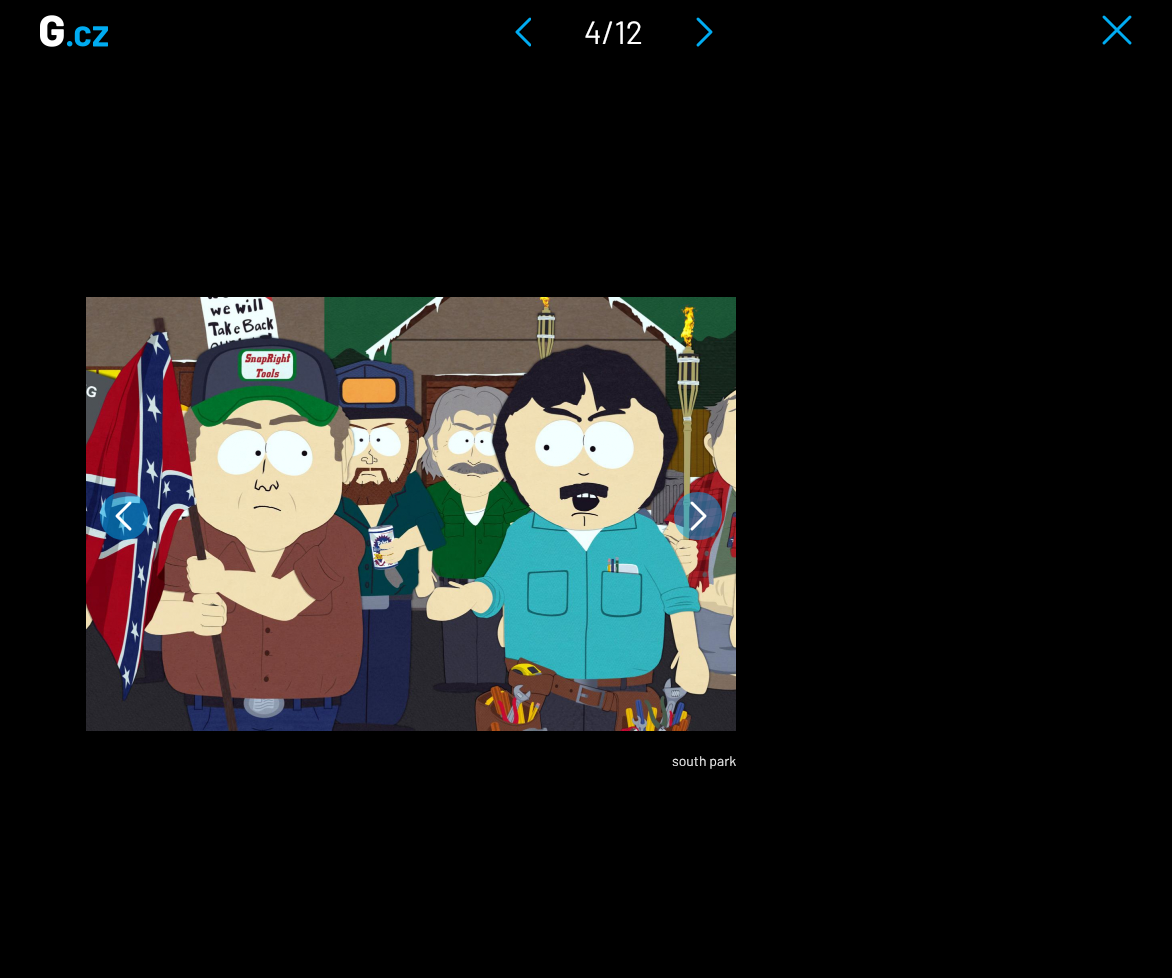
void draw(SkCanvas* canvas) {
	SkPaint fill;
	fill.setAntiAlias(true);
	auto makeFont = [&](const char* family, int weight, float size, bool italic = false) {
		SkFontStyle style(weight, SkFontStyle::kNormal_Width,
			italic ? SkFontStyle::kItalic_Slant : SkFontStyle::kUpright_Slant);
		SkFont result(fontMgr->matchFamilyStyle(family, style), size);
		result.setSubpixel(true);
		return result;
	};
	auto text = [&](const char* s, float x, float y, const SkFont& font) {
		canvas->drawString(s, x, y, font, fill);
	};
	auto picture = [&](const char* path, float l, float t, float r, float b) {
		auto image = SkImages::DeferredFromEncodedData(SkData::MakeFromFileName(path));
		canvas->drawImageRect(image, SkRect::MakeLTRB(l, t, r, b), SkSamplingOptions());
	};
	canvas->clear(0xFF000000);
	picture("image0.png", 40, 15, 108, 47);
	canvas->save();
	canvas->clipRect(SkRect::MakeLTRB(514, 17, 531, 47));
	fill.setStyle(SkPaint::kStroke_Style);
	fill.setStrokeWidth(3);
	fill.setStrokeCap(SkPaint::kRound_Cap);
	fill.setStrokeJoin(SkPaint::kRound_Join);
	fill.setColor(0xFF00ACF2);
	canvas->drawPath(SkPathBuilder().moveTo(530, 45).lineTo(517, 32).lineTo(530, 19).detach(), fill);
	canvas->restore();
	canvas->drawPath(SkPathBuilder().moveTo(698, 19).lineTo(711, 32).lineTo(698, 45).detach(), fill);
	fill.setStrokeJoin(SkPaint::kMiter_Join);
	canvas->drawPath(SkPathBuilder().moveTo(1130, 43).lineTo(1104, 17).moveTo(1104, 43).lineTo(1130, 17).detach(), fill);
	picture("image1.png", 86, 297, 736, 731);
	fill.setStyle(SkPaint::kFill_Style);
	fill.setColor(0x8000ACF2);
	canvas->drawPath(SkPathBuilder().moveTo(124, 492).cubicTo(92, 492, 92, 540, 124, 540).cubicTo(156, 540, 156, 492, 124, 492).close().detach(), fill);
	fill.setStyle(SkPaint::kStroke_Style);
	fill.setStrokeJoin(SkPaint::kRound_Join);
	fill.setColor(0xFFFFFFFF);
	canvas->drawPath(SkPathBuilder().moveTo(130, 529).lineTo(117, 516).lineTo(130, 503).detach(), fill);
	fill.setStyle(SkPaint::kFill_Style);
	fill.setColor(0x8000ACF2);
	canvas->drawPath(SkPathBuilder().moveTo(698, 540).cubicTo(730, 540, 730, 492, 698, 492).cubicTo(666, 492, 666, 540, 698, 540).close().detach(), fill);
	fill.setStyle(SkPaint::kStroke_Style);
	fill.setColor(0xFFFFFFFF);
	canvas->drawPath(SkPathBuilder().moveTo(692, 503).lineTo(705, 516).lineTo(692, 529).detach(), fill);
	auto font1 = makeFont("Barlow", 400, 32);
	fill.setStyle(SkPaint::kFill_Style);
	text("4/12", 584, 44, font1);
	auto font2 = makeFont("Barlow", 400, 14);
	fill.setColor(0xFFE6E6E6);
	text("south park", 672, 766, font2);
}
